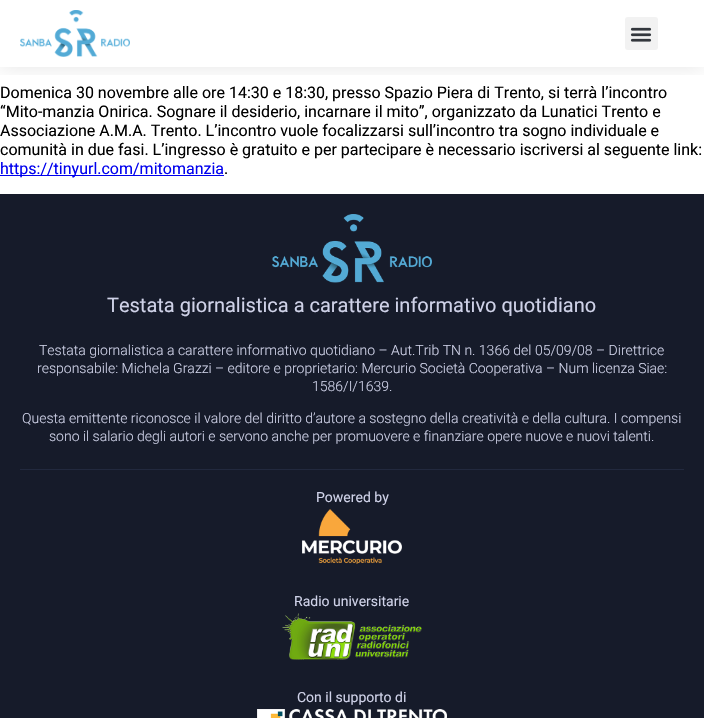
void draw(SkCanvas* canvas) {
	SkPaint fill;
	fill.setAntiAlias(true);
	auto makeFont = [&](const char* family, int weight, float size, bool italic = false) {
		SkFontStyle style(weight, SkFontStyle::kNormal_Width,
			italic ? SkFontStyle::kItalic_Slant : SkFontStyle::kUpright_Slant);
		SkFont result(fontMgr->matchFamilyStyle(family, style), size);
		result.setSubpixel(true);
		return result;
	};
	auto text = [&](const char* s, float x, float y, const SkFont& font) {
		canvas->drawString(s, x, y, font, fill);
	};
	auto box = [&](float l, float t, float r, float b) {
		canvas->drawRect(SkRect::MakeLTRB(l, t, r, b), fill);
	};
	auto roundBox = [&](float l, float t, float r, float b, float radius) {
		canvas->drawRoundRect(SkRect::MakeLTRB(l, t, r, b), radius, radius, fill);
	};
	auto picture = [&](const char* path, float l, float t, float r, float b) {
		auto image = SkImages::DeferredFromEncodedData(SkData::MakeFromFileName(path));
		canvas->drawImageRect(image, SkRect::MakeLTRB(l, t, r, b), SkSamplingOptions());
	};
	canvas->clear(0xFFFFFFFF);
	canvas->save();
	canvas->clipRect(SkRect::MakeLTRB(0, 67, 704, 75));
	fill.setColor(0x1A000000);
	fill.setMaskFilter(SkMaskFilter::MakeBlur(kNormal_SkBlurStyle, 10));
	canvas->drawRect(SkRect::MakeLTRB(0, 0, 704, 67), fill);
	fill.setMaskFilter(nullptr);
	canvas->restore();
	picture("image0.png", 20, 10, 130, 57);
	fill.setColor(0xFFF2F2F2);
	roundBox(625, 17, 658, 50, 3);
	picture("image1.png", 630, 27, 652, 42);
	fill.setColor(0xFF0000EE);
	box(0, 175, 224, 176);
	fill.setColor(0xFF161B2A);
	box(0, 194, 704, 718);
	picture("image2.png", 272, 214, 432, 283);
	fill.setColor(0xFF22293E);
	box(20, 469, 684, 470);
	picture("image3.png", 302, 509, 402, 564);
	picture("image4.png", 282, 613, 422, 660);
	picture("image5.png", 257, 709, 447, 718);
	auto font1 = makeFont("Roboto", 400, 16);
	fill.setColor(0xFF000000);
	text("Domenica 30 novembre alle ore 14:30 e 18:30, presso Spazio Piera di Trento, si terrà l’incontro", 0, 98, font1);
	text("“Mito-manzia Onirica. Sognare il desiderio, incarnare il mito”, organizzato da Lunatici Trento e", 0, 117, font1);
	text("Associazione A.M.A. Trento. L’incontro vuole focalizzarsi sull’incontro tra sogno individuale e", 0, 136, font1);
	text("comunità in due fasi. L’ingresso è gratuito e per partecipare è necessario iscriversi al seguente link:", 0, 155, font1);
	fill.setColor(0xFF0000EE);
	text("https://tinyurl.com/mitomanzia", 0, 174, font1);
	fill.setColor(0xFF000000);
	text(".", 224, 174, font1);
	auto font2 = makeFont("Roboto", 400, 20);
	fill.setColor(0xFFCFD2E8);
	text("Testata giornalistica a carattere informativo quotidiano", 107, 312, font2);
	auto font3 = makeFont("Roboto", 300, 14);
	text("Testata giornalistica a carattere informativo quotidiano – Aut.Trib TN n. 1366 del 05/09/08 – Direttrice", 39, 355, font3);
	text("responsabile: Michela Grazzi – editore e proprietario: Mercurio Società Cooperativa – Num licenza Siae:", 37, 373, font3);
	text("1586/I/1639.", 312, 391, font3);
	text("Questa emittente riconosce il valore del diritto d’autore a sostegno della creatività e della cultura. I compensi", 22, 423, font3);
	text("sono il salario degli autori e servono anche per promuovere e finanziare opere nuove e nuovi talenti.", 49, 441, font3);
	auto font4 = makeFont("Roboto", 400, 14);
	text("Powered by", 316, 502, font4);
	text("Radio universitarie", 294, 606, font4);
	text("Con il supporto di", 297, 702, font4);
}
